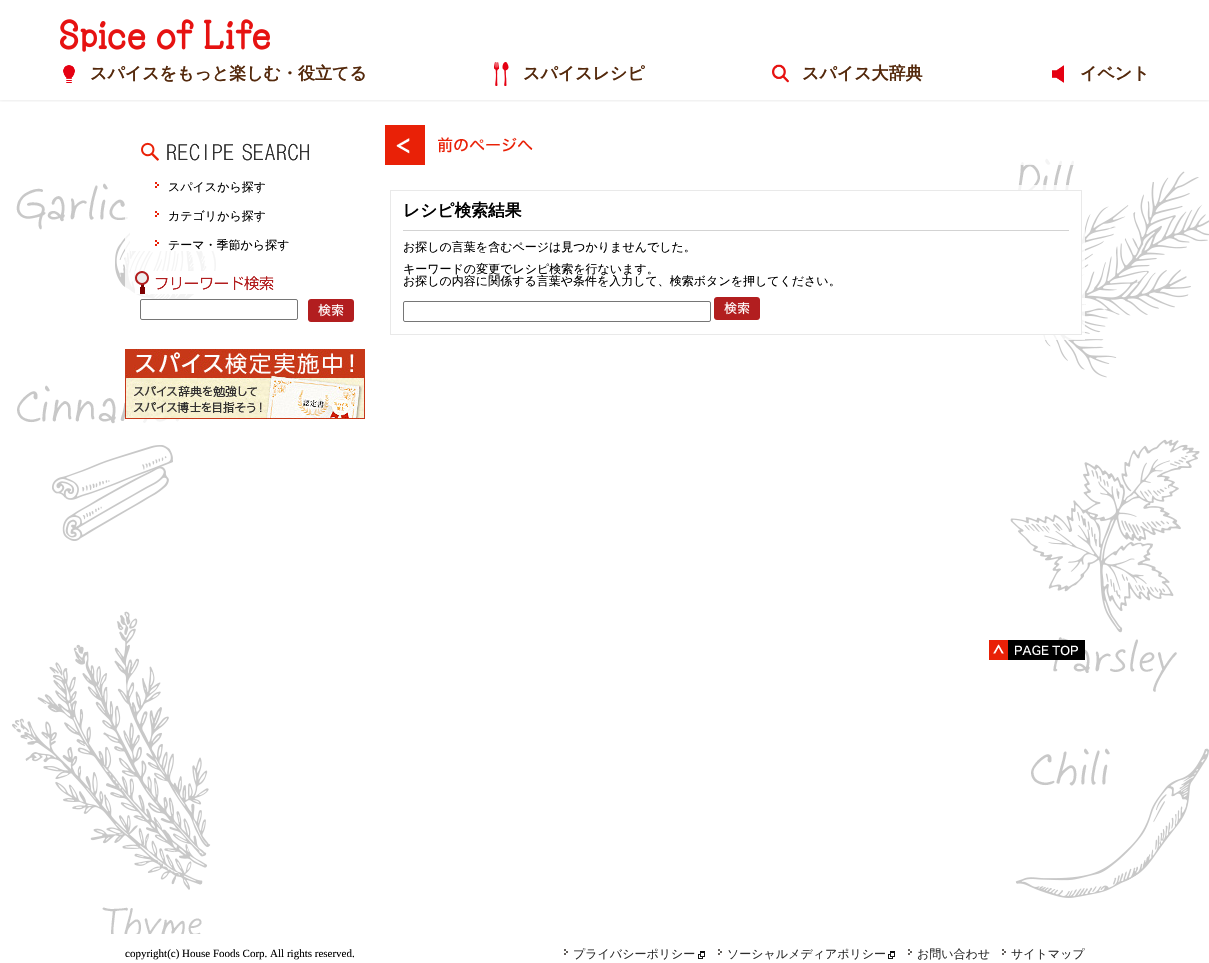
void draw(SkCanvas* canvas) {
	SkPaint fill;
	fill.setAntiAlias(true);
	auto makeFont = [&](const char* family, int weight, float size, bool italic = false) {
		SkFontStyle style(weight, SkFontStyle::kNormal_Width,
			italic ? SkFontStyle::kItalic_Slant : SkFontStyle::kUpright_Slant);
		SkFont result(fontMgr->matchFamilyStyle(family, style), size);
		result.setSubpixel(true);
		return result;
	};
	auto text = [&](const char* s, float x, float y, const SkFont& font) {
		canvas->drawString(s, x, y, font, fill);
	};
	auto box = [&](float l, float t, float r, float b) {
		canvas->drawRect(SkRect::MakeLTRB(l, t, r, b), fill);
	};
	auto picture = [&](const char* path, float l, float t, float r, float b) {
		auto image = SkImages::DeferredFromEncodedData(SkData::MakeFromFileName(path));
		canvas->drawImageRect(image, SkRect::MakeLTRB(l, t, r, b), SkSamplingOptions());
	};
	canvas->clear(0xFFFFFFFF);
	canvas->save();
	canvas->clipRect(SkRect::MakeLTRB(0, 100, 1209, 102));
	fill.setColor(0x4D000000);
	fill.setMaskFilter(SkMaskFilter::MakeBlur(kNormal_SkBlurStyle, 2.5f));
	canvas->drawRect(SkRect::MakeLTRB(-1, -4, 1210, 98), fill);
	fill.setMaskFilter(nullptr);
	canvas->restore();
	picture("image0.png", 60, 19, 270, 52);
	picture("image1.png", 63, 65, 75, 83);
	picture("image2.png", 494, 62, 509, 86);
	picture("image3.png", 772, 64, 789, 83);
	picture("image4.png", 1052, 65, 1064, 83);
	picture("image5.png", 12, 158, 1209, 934);
	fill.setColor(0xCCFFFFFF);
	box(125, 180, 216, 423);
	picture("image6.png", 141, 142, 309, 161);
	fill.setColor(0xFFFFFFFF);
	box(130, 180, 213, 251);
	picture("image7.png", 155, 182, 159, 188);
	picture("image7.png", 155, 211, 159, 217);
	picture("image7.png", 155, 240, 159, 246);
	picture("image8.png", 135, 271, 274, 294);
	canvas->drawRoundRect(SkRect::MakeLTRB(140.5f, 299.5f, 297.5f, 319.5f), 1.5f, 1.5f, fill);
	fill.setStyle(SkPaint::kStroke_Style);
	fill.setStrokeWidth(1);
	fill.setColor(0xFF767676);
	canvas->drawRoundRect(SkRect::MakeLTRB(140.5f, 299.5f, 297.5f, 319.5f), 1.5f, 1.5f, fill);
	picture("image9.png", 308, 299, 354, 322);
	picture("image10.png", 125, 349, 365, 419);
	fill.setStyle(SkPaint::kFill_Style);
	fill.setColor(0xCCFFFFFF);
	box(1021, 158, 1074, 165);
	picture("image11.png", 385, 125, 533, 165);
	box(1008, 185, 1085, 340);
	fill.setColor(0xFFFFFFFF);
	box(1008, 191, 1081, 334);
	fill.setStyle(SkPaint::kStroke_Style);
	fill.setColor(0xFFE9E9E9);
	canvas->drawRect(SkRect::MakeLTRB(390.5f, 190.5f, 1081.5f, 334.5f), fill);
	fill.setStyle(SkPaint::kFill_Style);
	fill.setColor(0xFFD3D3D3);
	box(403, 230, 1069, 231);
	fill.setStyle(SkPaint::kStroke_Style);
	fill.setColor(0xFF767676);
	canvas->drawRoundRect(SkRect::MakeLTRB(403.5f, 301.5f, 710.5f, 321.5f), 1.5f, 1.5f, fill);
	picture("image9.png", 714, 297, 760, 320);
	picture("image12.png", 989, 640, 1085, 660);
	picture("image13.png", 564, 949, 568, 955);
	picture("image14.png", 698, 951, 705, 959);
	picture("image13.png", 718, 949, 722, 955);
	picture("image14.png", 888, 951, 895, 959);
	picture("image13.png", 908, 949, 912, 955);
	picture("image13.png", 1002, 949, 1006, 955);
	auto font1 = makeFont("WenQuanYi Zen Hei", 700, 17);
	fill.setStyle(SkPaint::kFill_Style);
	fill.setColor(0xFF54290C);
	text("スパイスをもっと楽しむ・役立てる", 90, 79, font1);
	text("スパイスレシピ", 523, 79, font1);
	text("スパイス大辞典", 802, 79, font1);
	text("イベント", 1080, 79, font1);
	auto font2 = makeFont("WenQuanYi Zen Hei", 500, 12);
	fill.setColor(0xFF000000);
	text("スパイスから探す", 168, 191, font2);
	text("カテゴリから探す", 168, 220, font2);
	text("テーマ・季節から探す", 168, 249, font2);
	auto font3 = makeFont("WenQuanYi Zen Hei", 700, 16.75f);
	text("レシピ検索結果", 403, 216, font3);
	text("お探しの言葉を含むページは見つかりませんでした。", 403, 251, font2);
	text("キーワードの変更でレシピ検索を行ないます。", 403, 273, font2);
	text("お探しの内容に関係する言葉や条件を入力して、検索ボタンを押してください。", 403, 285, font2);
	auto font4 = makeFont("Liberation Serif", 400, 11);
	text("copyright(c) House Foods Corp. All rights reserved.", 125, 957, font4);
	fill.setColor(0xFF2E2E2E);
	text("プライバシーポリシー", 573, 958, font2);
	text("ソーシャルメディアポリシー", 727, 958, font2);
	text("お問い合わせ", 917, 958, font2);
	text("サイトマップ", 1011, 958, font2);
}
